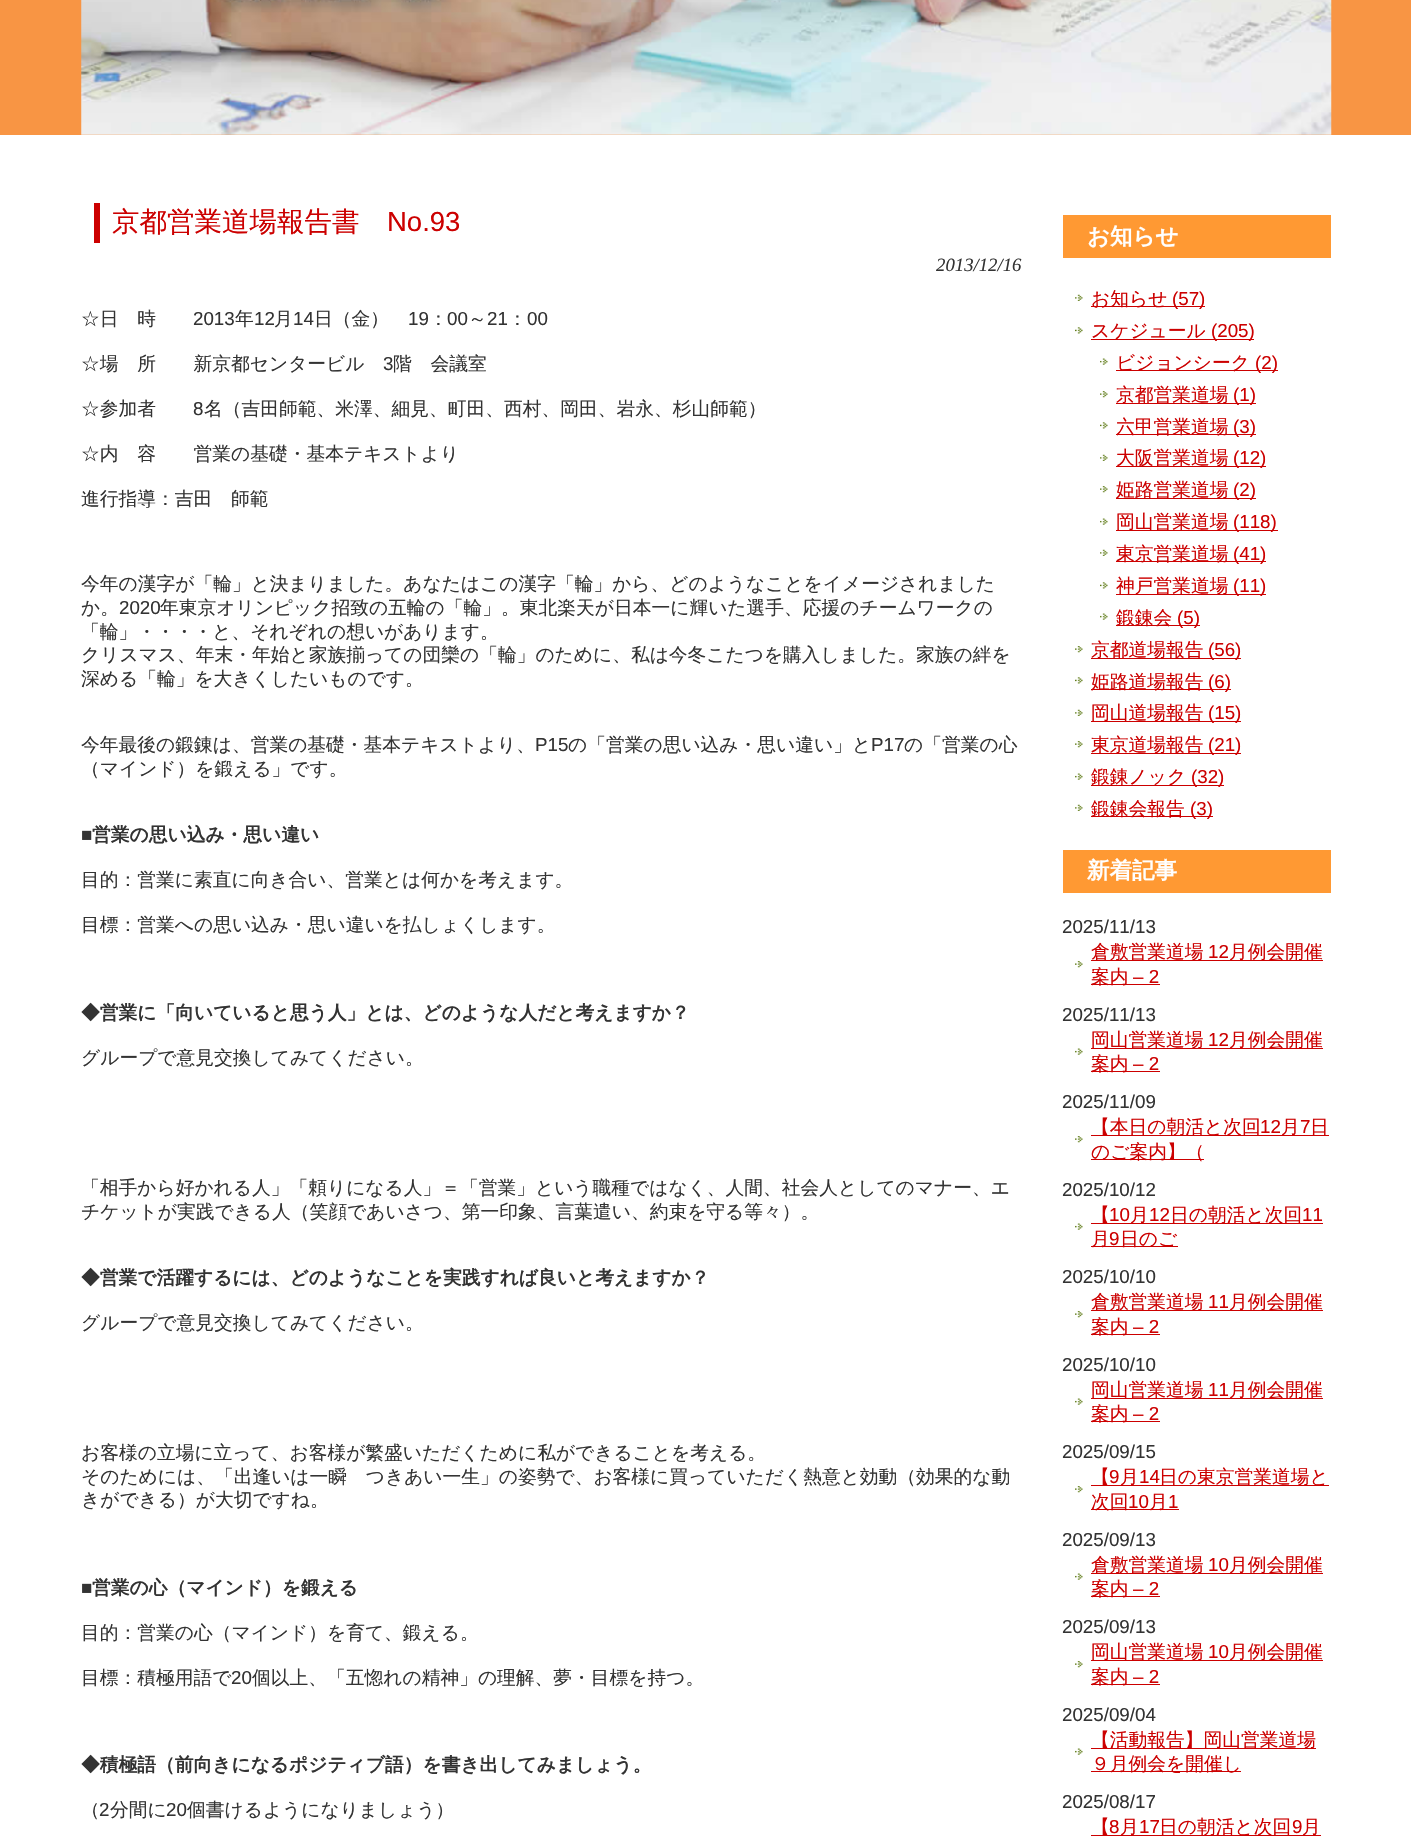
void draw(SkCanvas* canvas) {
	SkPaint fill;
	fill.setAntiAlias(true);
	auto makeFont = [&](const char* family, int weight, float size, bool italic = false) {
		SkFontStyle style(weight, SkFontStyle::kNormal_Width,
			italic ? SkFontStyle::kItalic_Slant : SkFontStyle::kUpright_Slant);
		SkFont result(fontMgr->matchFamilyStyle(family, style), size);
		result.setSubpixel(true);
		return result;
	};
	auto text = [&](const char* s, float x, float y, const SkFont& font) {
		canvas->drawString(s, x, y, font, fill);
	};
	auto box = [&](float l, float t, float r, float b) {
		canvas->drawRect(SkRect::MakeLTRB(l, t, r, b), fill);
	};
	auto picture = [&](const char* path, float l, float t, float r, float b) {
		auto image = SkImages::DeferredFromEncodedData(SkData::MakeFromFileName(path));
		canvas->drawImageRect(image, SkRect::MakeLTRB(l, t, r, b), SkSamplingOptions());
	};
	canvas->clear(0xFFFFFFFF);
	fill.setColor(0xFFF89544);
	box(0, 0, 1411, 135);
	picture("image0.png", 81, 0, 1332, 135);
	fill.setColor(0xFFCC0000);
	box(94, 203, 100, 243);
	fill.setColor(0xFFFF9933);
	box(1063, 215, 1331, 258);
	picture("image1.png", 1075, 294, 1083, 301);
	fill.setColor(0xFFCC0000);
	box(1091, 306, 1205, 307);
	picture("image2.png", 1075, 327, 1083, 334);
	box(1091, 339, 1254, 340);
	picture("image3.png", 1100, 358, 1108, 365);
	box(1116, 370, 1278, 371);
	picture("image4.png", 1100, 391, 1108, 398);
	box(1116, 403, 1256, 404);
	picture("image5.png", 1100, 422, 1108, 429);
	box(1116, 434, 1256, 435);
	picture("image6.png", 1100, 454, 1108, 461);
	box(1116, 466, 1266, 467);
	picture("image4.png", 1100, 486, 1108, 493);
	box(1116, 498, 1256, 499);
	picture("image3.png", 1100, 518, 1108, 525);
	box(1116, 530, 1278, 531);
	picture("image6.png", 1100, 549, 1108, 556);
	box(1116, 561, 1266, 562);
	picture("image5.png", 1100, 582, 1108, 589);
	box(1116, 594, 1266, 595);
	picture("image3.png", 1100, 613, 1108, 620);
	box(1116, 625, 1200, 626);
	picture("image7.png", 1075, 646, 1083, 653);
	box(1091, 658, 1241, 659);
	picture("image2.png", 1075, 677, 1083, 684);
	box(1091, 689, 1231, 690);
	picture("image1.png", 1075, 709, 1083, 716);
	box(1091, 721, 1241, 722);
	picture("image7.png", 1075, 741, 1083, 748);
	box(1091, 753, 1241, 754);
	picture("image8.png", 1075, 773, 1083, 780);
	box(1091, 785, 1224, 786);
	picture("image1.png", 1075, 804, 1083, 811);
	box(1091, 816, 1213, 817);
	fill.setColor(0xFFFF9933);
	box(1063, 850, 1331, 893);
	picture("image7.png", 1075, 961, 1083, 968);
	fill.setColor(0xFFCC0000);
	box(1091, 960, 1323, 961);
	box(1091, 984, 1160, 985);
	picture("image8.png", 1075, 1048, 1083, 1055);
	box(1091, 1048, 1323, 1049);
	box(1091, 1071, 1160, 1072);
	picture("image7.png", 1075, 1136, 1083, 1143);
	box(1091, 1135, 1329, 1136);
	box(1091, 1159, 1204, 1160);
	picture("image8.png", 1075, 1223, 1083, 1230);
	box(1091, 1223, 1323, 1224);
	box(1091, 1246, 1178, 1247);
	picture("image7.png", 1075, 1311, 1083, 1318);
	box(1091, 1310, 1323, 1311);
	box(1091, 1334, 1160, 1335);
	picture("image8.png", 1075, 1398, 1083, 1405);
	box(1091, 1398, 1323, 1399);
	box(1091, 1421, 1160, 1422);
	picture("image7.png", 1075, 1486, 1083, 1493);
	box(1091, 1485, 1329, 1486);
	box(1091, 1509, 1179, 1510);
	picture("image8.png", 1075, 1573, 1083, 1580);
	box(1091, 1573, 1323, 1574);
	box(1091, 1596, 1160, 1597);
	picture("image7.png", 1075, 1661, 1083, 1668);
	box(1091, 1660, 1323, 1661);
	box(1091, 1684, 1160, 1685);
	picture("image8.png", 1075, 1748, 1083, 1755);
	box(1091, 1748, 1316, 1749);
	box(1091, 1771, 1241, 1772);
	box(1091, 1835, 1321, 1836);
	auto font1 = makeFont("WenQuanYi Zen Hei", 500, 27.5f);
	text("京都営業道場報告書", 112, 231, font1);
	auto font2 = makeFont("Liberation Sans", 400, 27.5f);
	text("No.93", 387, 231, font2);
	auto font3 = makeFont("Liberation Serif", 400, 18.75f, true);
	fill.setColor(0xFF333333);
	text("2013/12/16", 936, 271, font3);
	auto font4 = makeFont("WenQuanYi Zen Hei", 500, 18.75f);
	text("☆日　時", 81, 325, font4);
	auto font5 = makeFont("Liberation Sans", 400, 18.75f);
	text("2013", 193, 325, font5);
	text("年", 235, 325, font4);
	text("12", 254, 325, font5);
	text("月", 274, 325, font4);
	text("14", 293, 325, font5);
	text("日（金）", 314, 325, font4);
	text("19", 408, 325, font5);
	text("：", 429, 325, font4);
	text("00", 447, 325, font5);
	text("～", 468, 325, font4);
	text("21", 487, 325, font5);
	text("：", 508, 325, font4);
	text("00", 527, 325, font5);
	text("☆場　所　　新京都センタービル", 81, 370, font4);
	text("3", 383, 370, font5);
	text("階　会議室", 393, 370, font4);
	text("☆参加者", 81, 415, font4);
	text("8", 193, 415, font5);
	text("名（吉田師範、米澤、細見、町田、西村、岡田、岩永、杉山師範）", 204, 415, font4);
	text("☆内　容　　営業の基礎・基本テキストより", 81, 460, font4);
	text("進行指導：吉田　師範", 81, 505, font4);
	text("今年の漢字が「輪」と決まりました。あなたはこの漢字「輪」から、どのようなことをイメージされました", 81, 590, font4);
	text("か。", 81, 614, font4);
	text("2020", 119, 614, font5);
	text("年東京オリンピック招致の五輪の「輪」。東北楽天が日本一に輝いた選手、応援のチームワークの", 160, 614, font4);
	text("「輪」・・・・と、それぞれの想いがあります。", 81, 638, font4);
	text("クリスマス、年末・年始と家族揃っての団欒の「輪」のために、私は今冬こたつを購入しました。家族の絆を", 81, 661, font4);
	text("深める「輪」を大きくしたいものです。", 81, 685, font4);
	text("今年最後の鍛錬は、営業の基礎・基本テキストより、", 81, 751, font4);
	text("P15", 535, 751, font5);
	text("の「営業の思い込み・思い違い」と", 568, 751, font4);
	text("P17", 871, 751, font5);
	text("の「営業の心", 904, 751, font4);
	text("（マインド）を鍛える」です。", 81, 775, font4);
	auto font6 = makeFont("Liberation Sans", 700, 18.75f);
	text("■", 81, 841, font6);
	auto font7 = makeFont("WenQuanYi Zen Hei", 700, 18.75f);
	text("営業の思い込み・思い違い", 92, 841, font7);
	text("目的：営業に素直に向き合い、営業とは何かを考えます。", 81, 886, font4);
	text("目標：営業への思い込み・思い違いを払しょくします。", 81, 931, font4);
	text("◆営業に「向いていると思う人」とは、どのような人だと考えますか？", 81, 1019, font7);
	text("グループで意見交換してみてください。", 81, 1064, font4);
	text("「相手から好かれる人」「頼りになる人」＝「営業」という職種ではなく、人間、社会人としてのマナー、エ", 81, 1194, font4);
	text("チケットが実践できる人（笑顔であいさつ、第一印象、言葉遣い、約束を守る等々）。", 81, 1218, font4);
	text("◆営業で活躍するには、どのようなことを実践すれば良いと考えますか？", 81, 1284, font7);
	text("グループで意見交換してみてください。", 81, 1329, font4);
	text("お客様の立場に立って、お客様が繁盛いただくために私ができることを考える。", 81, 1459, font4);
	text("そのためには、「出逢いは一瞬　つきあい一生」の姿勢で、お客様に買っていただく熱意と効動（効果的な動", 81, 1483, font4);
	text("きができる）が大切ですね。", 81, 1506, font4);
	text("■", 81, 1594, font6);
	text("営業の心（マインド）を鍛える", 92, 1594, font7);
	text("目的：営業の心（マインド）を育て、鍛える。", 81, 1639, font4);
	text("目標：積極用語で", 81, 1684, font4);
	text("20", 231, 1684, font5);
	text("個以上、「五惚れの精神」の理解、夢・目標を持つ。", 252, 1684, font4);
	text("◆積極語（前向きになるポジティブ語）を書き出してみましょう。", 81, 1771, font7);
	text("（", 81, 1816, font4);
	text("2", 99, 1816, font5);
	text("分間に", 110, 1816, font4);
	text("20", 166, 1816, font5);
	text("個書けるようになりましょう）", 187, 1816, font4);
	auto font8 = makeFont("WenQuanYi Zen Hei", 700, 22.5f);
	fill.setColor(0xFFFFFFFF);
	text("お知らせ", 1087, 244, font8);
	fill.setColor(0xFFCC0000);
	text("お知らせ", 1091, 305, font4);
	text("(57)", 1172, 305, font5);
	text("スケジュール", 1091, 337, font4);
	text("(205)", 1211, 337, font5);
	text("ビジョンシーク", 1116, 369, font4);
	text("(2)", 1255, 369, font5);
	text("京都営業道場", 1116, 401, font4);
	text("(1)", 1233, 401, font5);
	text("六甲営業道場", 1116, 433, font4);
	text("(3)", 1233, 433, font5);
	text("大阪営業道場", 1116, 464, font4);
	text("(12)", 1233, 464, font5);
	text("姫路営業道場", 1116, 496, font4);
	text("(2)", 1233, 496, font5);
	text("岡山営業道場", 1116, 528, font4);
	text("(118)", 1233, 528, font5);
	text("東京営業道場", 1116, 560, font4);
	text("(41)", 1233, 560, font5);
	text("神戸営業道場", 1116, 592, font4);
	text("(11)", 1233, 592, font5);
	text("鍛錬会", 1116, 624, font4);
	text("(5)", 1177, 624, font5);
	text("京都道場報告", 1091, 656, font4);
	text("(56)", 1208, 656, font5);
	text("姫路道場報告", 1091, 688, font4);
	text("(6)", 1208, 688, font5);
	text("岡山道場報告", 1091, 719, font4);
	text("(15)", 1208, 719, font5);
	text("東京道場報告", 1091, 751, font4);
	text("(21)", 1208, 751, font5);
	text("鍛錬ノック", 1091, 783, font4);
	text("(32)", 1191, 783, font5);
	text("鍛錬会報告", 1091, 815, font4);
	text("(3)", 1190, 815, font5);
	fill.setColor(0xFFFFFFFF);
	text("新着記事", 1087, 878, font8);
	fill.setColor(0xFF333333);
	text("2025/11/13", 1062, 933, font5);
	fill.setColor(0xFFCC0000);
	text("倉敷営業道場", 1091, 958, font4);
	text("12", 1208, 958, font5);
	text("月例会開催", 1229, 958, font4);
	text("案内", 1091, 983, font4);
	text("– 2", 1133, 983, font5);
	fill.setColor(0xFF333333);
	text("2025/11/13", 1062, 1021, font5);
	fill.setColor(0xFFCC0000);
	text("岡山営業道場", 1091, 1046, font4);
	text("12", 1208, 1046, font5);
	text("月例会開催", 1229, 1046, font4);
	text("案内", 1091, 1070, font4);
	text("– 2", 1133, 1070, font5);
	fill.setColor(0xFF333333);
	text("2025/11/09", 1062, 1108, font5);
	fill.setColor(0xFFCC0000);
	text("【本日の朝活と次回", 1091, 1133, font4);
	text("12", 1260, 1133, font5);
	text("月", 1281, 1133, font4);
	text("7", 1300, 1133, font5);
	text("日", 1310, 1133, font4);
	text("のご案内】（", 1091, 1158, font4);
	fill.setColor(0xFF333333);
	text("2025/10/12", 1062, 1196, font5);
	fill.setColor(0xFFCC0000);
	text("【", 1091, 1221, font4);
	text("10", 1109, 1221, font5);
	text("月", 1130, 1221, font4);
	text("12", 1149, 1221, font5);
	text("日の朝活と次回", 1170, 1221, font4);
	text("11", 1302, 1221, font5);
	text("月", 1091, 1245, font4);
	text("9", 1109, 1245, font5);
	text("日のご", 1120, 1245, font4);
	fill.setColor(0xFF333333);
	text("2025/10/10", 1062, 1283, font5);
	fill.setColor(0xFFCC0000);
	text("倉敷営業道場", 1091, 1308, font4);
	text("11", 1208, 1308, font5);
	text("月例会開催", 1229, 1308, font4);
	text("案内", 1091, 1333, font4);
	text("– 2", 1133, 1333, font5);
	fill.setColor(0xFF333333);
	text("2025/10/10", 1062, 1371, font5);
	fill.setColor(0xFFCC0000);
	text("岡山営業道場", 1091, 1396, font4);
	text("11", 1208, 1396, font5);
	text("月例会開催", 1229, 1396, font4);
	text("案内", 1091, 1420, font4);
	text("– 2", 1133, 1420, font5);
	fill.setColor(0xFF333333);
	text("2025/09/15", 1062, 1458, font5);
	fill.setColor(0xFFCC0000);
	text("【", 1091, 1483, font4);
	text("9", 1109, 1483, font5);
	text("月", 1120, 1483, font4);
	text("14", 1139, 1483, font5);
	text("日の東京営業道場と", 1159, 1483, font4);
	text("次回", 1091, 1508, font4);
	text("10", 1128, 1508, font5);
	text("月", 1149, 1508, font4);
	text("1", 1168, 1508, font5);
	fill.setColor(0xFF333333);
	text("2025/09/13", 1062, 1546, font5);
	fill.setColor(0xFFCC0000);
	text("倉敷営業道場", 1091, 1571, font4);
	text("10", 1208, 1571, font5);
	text("月例会開催", 1229, 1571, font4);
	text("案内", 1091, 1595, font4);
	text("– 2", 1133, 1595, font5);
	fill.setColor(0xFF333333);
	text("2025/09/13", 1062, 1633, font5);
	fill.setColor(0xFFCC0000);
	text("岡山営業道場", 1091, 1658, font4);
	text("10", 1208, 1658, font5);
	text("月例会開催", 1229, 1658, font4);
	text("案内", 1091, 1683, font4);
	text("– 2", 1133, 1683, font5);
	fill.setColor(0xFF333333);
	text("2025/09/04", 1062, 1721, font5);
	fill.setColor(0xFFCC0000);
	text("【活動報告】岡山営業道場", 1091, 1746, font4);
	text("９月例会を開催し", 1091, 1770, font4);
	fill.setColor(0xFF333333);
	text("2025/08/17", 1062, 1808, font5);
	fill.setColor(0xFFCC0000);
	text("【", 1091, 1833, font4);
	text("8", 1109, 1833, font5);
	text("月", 1120, 1833, font4);
	text("17", 1139, 1833, font5);
	text("日の朝活と次回", 1159, 1833, font4);
	text("9", 1292, 1833, font5);
	text("月", 1302, 1833, font4);
}
